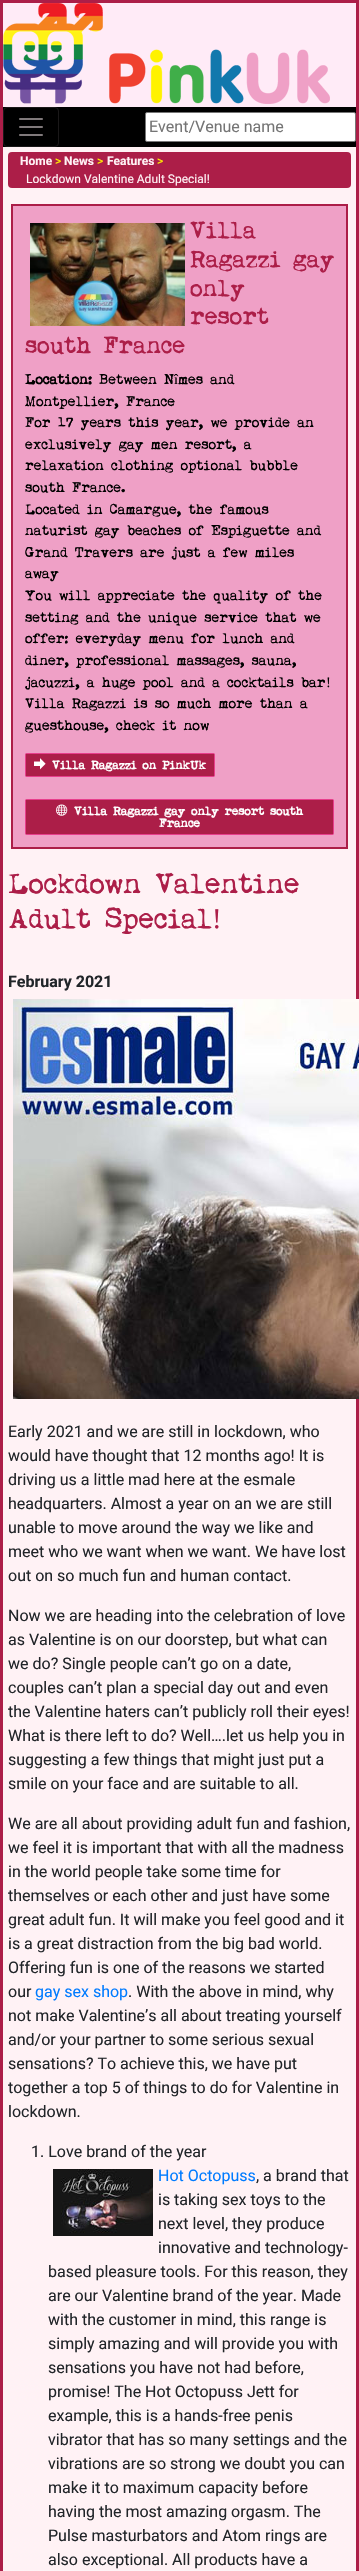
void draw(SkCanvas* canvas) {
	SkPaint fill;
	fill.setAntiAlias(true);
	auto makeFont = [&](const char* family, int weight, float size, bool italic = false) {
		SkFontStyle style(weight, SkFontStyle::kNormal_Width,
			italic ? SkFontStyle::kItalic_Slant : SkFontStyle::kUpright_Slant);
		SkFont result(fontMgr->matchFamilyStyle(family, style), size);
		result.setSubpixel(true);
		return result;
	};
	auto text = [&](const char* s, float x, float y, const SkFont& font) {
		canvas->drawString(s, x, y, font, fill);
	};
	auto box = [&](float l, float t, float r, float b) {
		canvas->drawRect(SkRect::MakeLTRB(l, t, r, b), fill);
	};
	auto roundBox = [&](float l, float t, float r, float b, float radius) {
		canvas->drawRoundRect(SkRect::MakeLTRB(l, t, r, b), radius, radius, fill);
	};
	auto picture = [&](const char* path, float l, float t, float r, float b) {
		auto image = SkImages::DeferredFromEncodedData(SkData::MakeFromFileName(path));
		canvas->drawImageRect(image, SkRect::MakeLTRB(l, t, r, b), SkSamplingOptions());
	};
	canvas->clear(0xFFFFFFFF);
	fill.setStyle(SkPaint::kStroke_Style);
	fill.setStrokeWidth(3);
	fill.setColor(0xFFAC1E48);
	canvas->drawRect(SkRect::MakeLTRB(1.5f, 1.5f, 357.5f, 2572.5f), fill);
	fill.setStyle(SkPaint::kFill_Style);
	fill.setColor(0xFFFFEBF7);
	box(3, 3, 356, 107);
	picture("image0.png", 3, 3, 330, 104);
	fill.setColor(0xFF000000);
	box(3, 107, 356, 147);
	fill.setStyle(SkPaint::kStroke_Style);
	fill.setStrokeWidth(1);
	fill.setColor(0xFF1A1819);
	canvas->drawRoundRect(SkRect::MakeLTRB(3.5f, 107.5f, 58.5f, 146.5f), 3.5f, 3.5f, fill);
	picture("image1.png", 19, 118, 43, 136);
	fill.setStyle(SkPaint::kFill_Style);
	fill.setColor(0xFFFFFFFF);
	canvas->drawRoundRect(SkRect::MakeLTRB(145.5f, 112.5f, 355.5f, 141.5f), 1.5f, 1.5f, fill);
	fill.setStyle(SkPaint::kStroke_Style);
	fill.setColor(0xFF767676);
	canvas->drawRoundRect(SkRect::MakeLTRB(145.5f, 112.5f, 355.5f, 141.5f), 1.5f, 1.5f, fill);
	fill.setStyle(SkPaint::kFill_Style);
	fill.setColor(0xFFFFF2F5);
	box(3, 147, 356, 2571);
	fill.setColor(0xFFAC1E48);
	roundBox(8, 152, 351, 188, 4);
	fill.setColor(0xFFEFA0C6);
	canvas->drawRect(SkRect::MakeLTRB(12, 205, 347, 848), fill);
	fill.setStyle(SkPaint::kStroke_Style);
	fill.setStrokeWidth(2);
	fill.setColor(0xFFAC1E48);
	canvas->drawRect(SkRect::MakeLTRB(12, 205, 347, 848), fill);
	picture("image2.png", 30, 223, 185, 326);
	fill.setStyle(SkPaint::kFill_Style);
	canvas->drawRoundRect(SkRect::MakeLTRB(25.5f, 753.5f, 214.5f, 776.5f), 1, 1, fill);
	fill.setStyle(SkPaint::kStroke_Style);
	fill.setStrokeWidth(1);
	fill.setColor(0xFFE83E8C);
	canvas->drawRoundRect(SkRect::MakeLTRB(25.5f, 753.5f, 214.5f, 776.5f), 1, 1, fill);
	picture("image3.png", 34, 758, 46, 770);
	fill.setStyle(SkPaint::kFill_Style);
	fill.setColor(0xFFAC1E48);
	canvas->drawRoundRect(SkRect::MakeLTRB(25.5f, 799.5f, 333.5f, 834.5f), 1, 1, fill);
	fill.setStyle(SkPaint::kStroke_Style);
	fill.setColor(0xFFE83E8C);
	canvas->drawRoundRect(SkRect::MakeLTRB(25.5f, 799.5f, 333.5f, 834.5f), 1, 1, fill);
	picture("image4.png", 56, 804, 68, 816);
	picture("image5.png", 13, 999, 359, 1399);
	picture("image6.png", 53, 2169, 153, 2236);
	auto font1 = makeFont("Roboto", 400, 16);
	fill.setStyle(SkPaint::kFill_Style);
	fill.setColor(0xFF757575);
	text("Event/Venue name", 149, 132, font1);
	auto font2 = makeFont("Roboto", 700, 12);
	fill.setColor(0xFFFFF2F5);
	text("Home", 20, 165, font2);
	auto font3 = makeFont("Roboto", 400, 12);
	fill.setColor(0xFFFFF200);
	text(">", 55, 165, font3);
	fill.setColor(0xFFFFF2F5);
	text("News", 64, 165, font2);
	fill.setColor(0xFFFFF200);
	text(">", 97, 165, font3);
	fill.setColor(0xFFFFF2F5);
	text("Features", 107, 165, font2);
	fill.setColor(0xFFFFF200);
	text(">", 157, 165, font3);
	fill.setColor(0xFFFFF2F5);
	text("Lockdown Valentine Adult Special!", 26, 183, font3);
	auto font4 = makeFont("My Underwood", 400, 24);
	fill.setColor(0xFFAC1E48);
	text("Villa", 190, 238, font4);
	text("Ragazzi gay", 190, 267, font4);
	text("only", 190, 296, font4);
	text("resort", 190, 324, font4);
	text("south France", 25, 353, font4);
	auto font5 = makeFont("My Underwood", 700, 14.4f);
	fill.setColor(0xFF000000);
	text("Location:", 25, 384, font5);
	auto font6 = makeFont("My Underwood", 400, 14.4f);
	text("Between N", 99, 384, font6);
	auto font7 = makeFont("Liberation Serif", 400, 14.4f);
	text("î", 174, 384, font7);
	text("mes and", 178, 384, font6);
	text("Montpellier, France", 25, 406, font6);
	text("For 17 years this year, we provide an", 25, 427, font6);
	text("exclusively gay men resort, a", 25, 449, font6);
	text("relaxation clothing optional bubble", 25, 470, font6);
	text("south France.", 25, 492, font6);
	text("Located in Camargue, the famous", 25, 514, font6);
	text("naturist gay beaches of Espiguette and", 25, 535, font6);
	text("Grand Travers are just a few miles", 25, 557, font6);
	text("away", 25, 578, font6);
	text("You will appreciate the quality of the", 25, 600, font6);
	text("setting and the unique service that we", 25, 622, font6);
	text("offer: everyday menu for lunch and", 25, 643, font6);
	text("diner, professional massages, sauna,", 25, 665, font6);
	text("jacuzzi, a huge pool and a cocktails bar", 25, 687, font6);
	text("!", 326, 687, font7);
	text("Villa Ragazzi is so much more than a", 25, 708, font6);
	text("guesthouse, check it now", 25, 730, font6);
	auto font8 = makeFont("My Underwood", 700, 12);
	fill.setColor(0xFFFFFFFF);
	text("Villa Ragazzi on PinkUk", 52, 769, font8);
	text("Villa Ragazzi gay only resort south", 74, 815, font8);
	text("France", 159, 827, font8);
	auto font9 = makeFont("My Underwood", 400, 28.75f);
	fill.setColor(0xFFAC1E48);
	text("Lockdown Valentine", 8, 893, font9);
	text("Adult Special", 8, 928, font9);
	auto font10 = makeFont("Liberation Serif", 400, 28.75f);
	text("!", 212, 928, font10);
	auto font11 = makeFont("Roboto", 700, 16);
	fill.setColor(0xFF212529);
	text("February 2021", 8, 987, font11);
	text("Early 2021 and we are still in lockdown, who", 8, 1437, font1);
	text("would have thought that 12 months ago! It is", 8, 1461, font1);
	text("driving us a little mad here at the esmale", 8, 1485, font1);
	text("headquarters. Almost a year on an we are still", 8, 1509, font1);
	text("unable to move around the way we like and", 8, 1533, font1);
	text("meet who we want when we want. We have lost", 8, 1557, font1);
	text("out on so much fun and human contact.", 8, 1581, font1);
	text("Now we are heading into the celebration of love", 8, 1621, font1);
	text("as Valentine is on our doorstep, but what can", 8, 1645, font1);
	text("we do? Single people can’t go on a date,", 8, 1669, font1);
	text("couples can’t plan a special day out and even", 8, 1693, font1);
	text("the Valentine haters can’t publicly roll their eyes!", 8, 1717, font1);
	text("What is there left to do? Well….let us help you in", 8, 1741, font1);
	text("suggesting a few things that might just put a", 8, 1765, font1);
	text("smile on your face and are suitable to all.", 8, 1789, font1);
	text("We are all about providing adult fun and fashion,", 8, 1829, font1);
	text("we feel it is important that with all the madness", 8, 1853, font1);
	text("in the world people take some time for", 8, 1877, font1);
	text("themselves or each other and just have some", 8, 1901, font1);
	text("great adult fun. It will make you feel good and it", 8, 1925, font1);
	text("is a great distraction from the big bad world.", 8, 1949, font1);
	text("Offering fun is one of the reasons we started", 8, 1973, font1);
	text("our", 8, 1997, font1);
	fill.setColor(0xFF007BFF);
	text("gay sex shop", 35, 1997, font1);
	fill.setColor(0xFF212529);
	text(". With the above in mind, why", 128, 1997, font1);
	text("not make Valentine’s all about treating yourself", 8, 2021, font1);
	text("and/or your partner to some serious sexual", 8, 2045, font1);
	text("sensations? To achieve this, we have put", 8, 2069, font1);
	text("together a top 5 of things to do for Valentine in", 8, 2093, font1);
	text("lockdown.", 8, 2117, font1);
	text("1. Love brand of the year", 31, 2157, font1);
	fill.setColor(0xFF007BFF);
	text("Hot Octopuss", 158, 2181, font1);
	fill.setColor(0xFF212529);
	text(", a brand that", 256, 2181, font1);
	text("is taking sex toys to the", 158, 2205, font1);
	text("next level, they produce", 158, 2229, font1);
	text("innovative and technology-", 158, 2253, font1);
	text("based pleasure tools. For this reason, they", 48, 2277, font1);
	text("are our Valentine brand of the year. Made", 48, 2301, font1);
	text("with the customer in mind, this range is", 48, 2325, font1);
	text("simply amazing and will provide you with", 48, 2349, font1);
	text("sensations you have not had before,", 48, 2373, font1);
	text("promise! The Hot Octopuss Jett for", 48, 2397, font1);
	text("example, this is a hands-free penis", 48, 2421, font1);
	text("vibrator that has so many settings and the", 48, 2445, font1);
	text("vibrations are so strong we doubt you can", 48, 2469, font1);
	text("make it to maximum capacity before", 48, 2493, font1);
	text("having the most amazing orgasm. The", 48, 2517, font1);
	text("Pulse masturbators and Atom rings are", 48, 2541, font1);
	text("also exceptional. All products have a", 48, 2565, font1);
}
